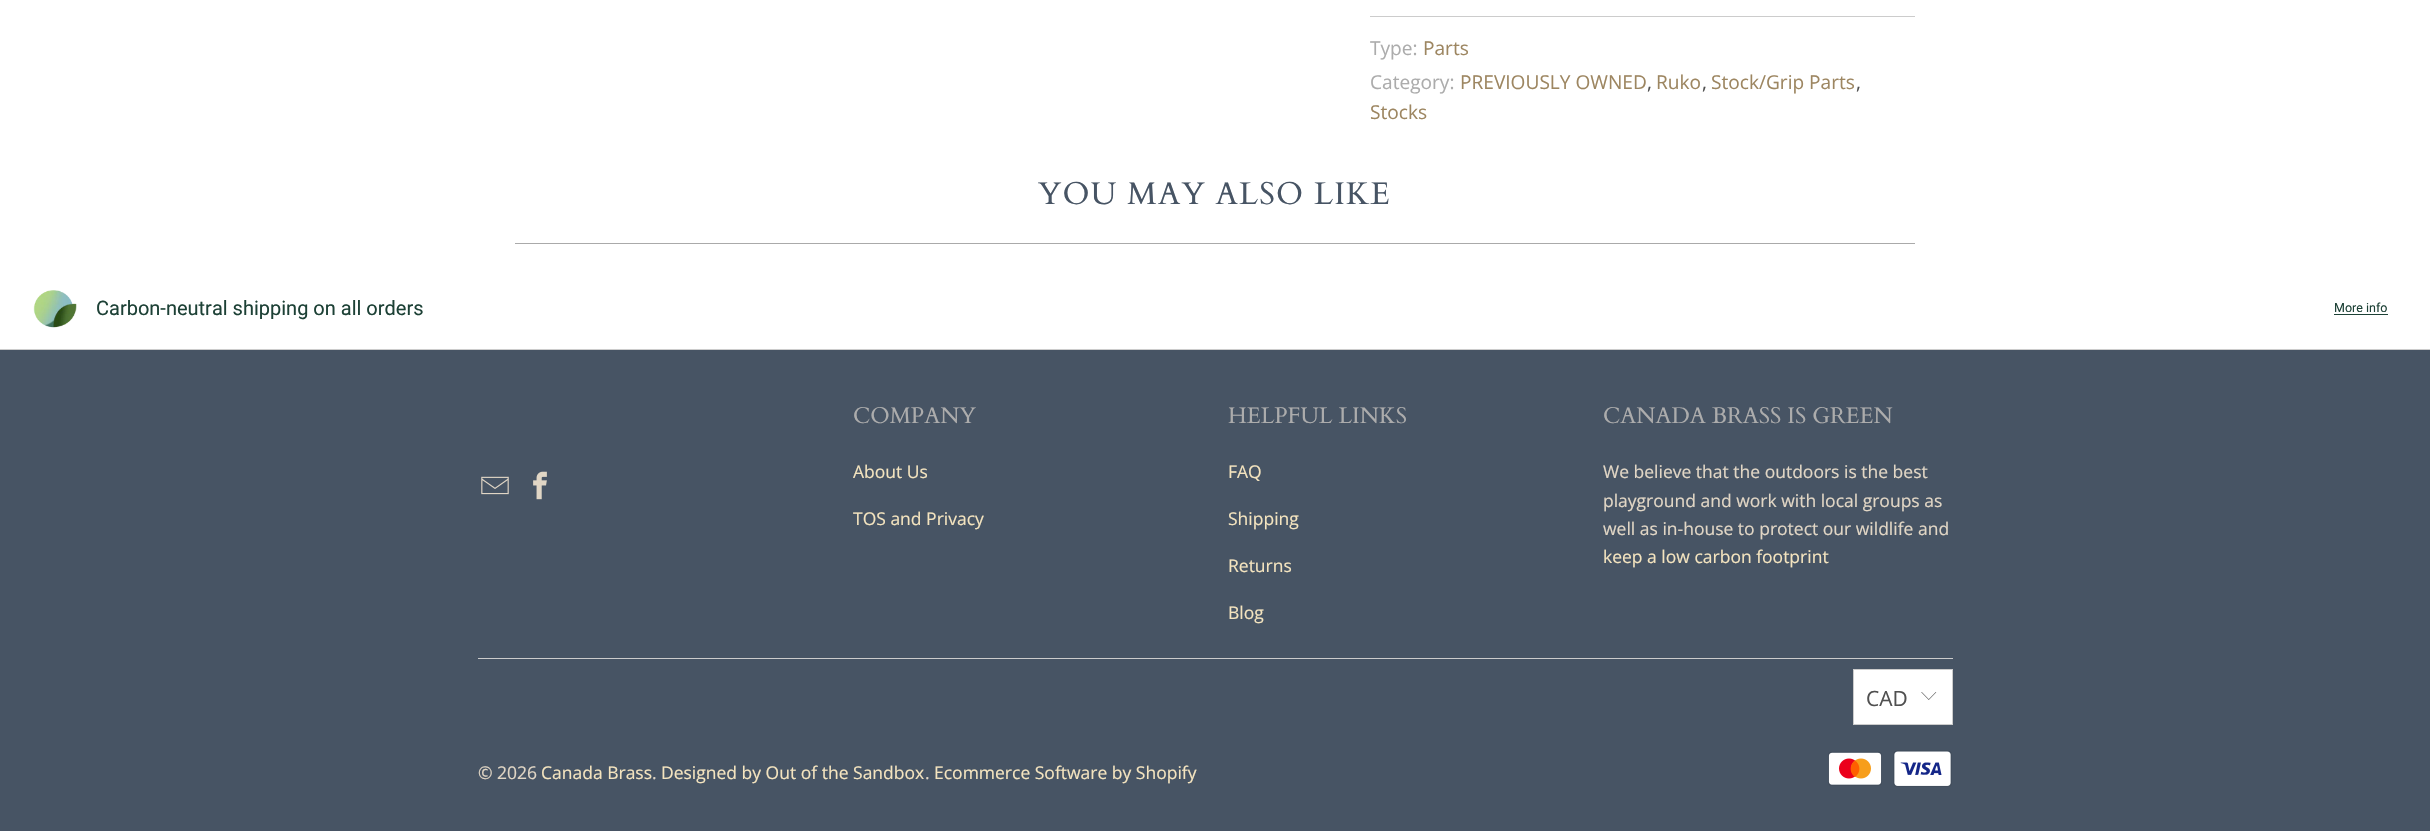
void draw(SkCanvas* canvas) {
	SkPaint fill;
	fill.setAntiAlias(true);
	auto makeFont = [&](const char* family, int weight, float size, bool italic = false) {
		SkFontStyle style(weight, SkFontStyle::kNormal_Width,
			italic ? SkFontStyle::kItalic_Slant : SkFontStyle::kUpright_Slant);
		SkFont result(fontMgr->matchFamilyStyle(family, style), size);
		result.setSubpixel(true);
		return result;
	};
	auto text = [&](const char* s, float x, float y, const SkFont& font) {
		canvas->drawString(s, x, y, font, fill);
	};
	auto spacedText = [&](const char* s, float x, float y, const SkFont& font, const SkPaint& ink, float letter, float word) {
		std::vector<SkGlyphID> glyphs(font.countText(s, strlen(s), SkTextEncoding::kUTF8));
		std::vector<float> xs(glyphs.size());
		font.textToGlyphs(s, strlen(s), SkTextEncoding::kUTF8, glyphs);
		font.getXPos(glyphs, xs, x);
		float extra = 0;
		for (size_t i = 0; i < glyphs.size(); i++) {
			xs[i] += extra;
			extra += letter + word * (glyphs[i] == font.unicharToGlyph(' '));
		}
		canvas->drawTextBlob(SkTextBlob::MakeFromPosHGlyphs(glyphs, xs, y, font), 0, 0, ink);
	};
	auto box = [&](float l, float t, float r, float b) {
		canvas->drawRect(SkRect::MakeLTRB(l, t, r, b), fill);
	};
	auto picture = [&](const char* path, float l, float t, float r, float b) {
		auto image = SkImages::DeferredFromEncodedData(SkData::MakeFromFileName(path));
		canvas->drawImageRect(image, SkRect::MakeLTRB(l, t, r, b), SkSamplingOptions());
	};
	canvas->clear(0xFFFFFFFF);
	fill.setColor(0xFFCCCCCC);
	box(1370, 16, 1915, 17);
	fill.setColor(0xFFAAAAAA);
	box(515, 243, 1915, 244);
	picture("image0.png", 33, 290, 77, 328);
	fill.setColor(0xFF1D4136);
	box(2334, 314, 2388, 315);
	fill.setColor(0xFF475464);
	box(0, 350, 2430, 831);
	fill.setColor(0xFFCCCCCC);
	box(0, 349, 2430, 350);
	picture("image1.png", 481, 476, 509, 495);
	picture("image2.png", 533, 471, 547, 500);
	box(478, 658, 1953, 659);
	fill.setColor(0xFFFFFFFF);
	canvas->drawRect(SkRect::MakeLTRB(1853.5f, 669.5f, 1952.5f, 724.5f), fill);
	fill.setStyle(SkPaint::kStroke_Style);
	fill.setStrokeWidth(1);
	fill.setColor(0xFFCCCCCC);
	canvas->drawRect(SkRect::MakeLTRB(1853.5f, 669.5f, 1952.5f, 724.5f), fill);
	picture("image3.png", 1921, 692, 1937, 700);
	picture("image4.png", 1828, 751, 1882, 786);
	picture("image5.png", 1893, 750, 1952, 787);
	auto font1 = makeFont("Open Sans", 400, 19.1f);
	fill.setStyle(SkPaint::kFill_Style);
	fill.setColor(0xFFACACAC);
	text("Type:", 1370, 55, font1);
	fill.setColor(0xFF9D8661);
	text("Parts", 1423, 55, font1);
	fill.setColor(0xFFACACAC);
	text("Category:", 1370, 89, font1);
	fill.setColor(0xFF9D8661);
	text("PREVIOUSLY OWNED", 1460, 89, font1);
	fill.setColor(0xFF505050);
	text(",", 1647, 89, font1);
	fill.setColor(0xFF9D8661);
	text("Ruko", 1656, 89, font1);
	fill.setColor(0xFF505050);
	text(",", 1702, 89, font1);
	fill.setColor(0xFF9D8661);
	text("Stock/Grip Parts", 1711, 89, font1);
	fill.setColor(0xFF505050);
	text(",", 1856, 89, font1);
	fill.setColor(0xFF9D8661);
	text("Stocks", 1370, 119, font1);
	auto font2 = makeFont("Cardo", 400, 31.25f);
	fill.setColor(0xFF475464);
	spacedText("YOU MAY ALSO LIKE", 1038, 204, font2, fill, 1.25f, 0);
	auto font3 = makeFont("Roboto", 400, 20);
	fill.setColor(0xFF1D4136);
	text("Carbon-neutral shipping on all orders", 96, 315, font3);
	auto font4 = makeFont("Roboto", 400, 12.5f);
	text("More info", 2334, 312, font4);
	auto font5 = makeFont("Cardo", 400, 22.5f);
	fill.setColor(0xFFACACAC);
	text("COMPANY", 853, 423, font5);
	auto font6 = makeFont("Open Sans", 400, 17.5f);
	fill.setColor(0xFFF4E4BF);
	text("About Us", 853, 478, font6);
	text("TOS and Privacy", 853, 525, font6);
	fill.setColor(0xFFACACAC);
	text("HELPFUL LINKS", 1228, 423, font5);
	fill.setColor(0xFFF4E4BF);
	text("FAQ", 1228, 478, font6);
	text("Shipping", 1228, 525, font6);
	text("Returns", 1228, 572, font6);
	text("Blog", 1228, 619, font6);
	fill.setColor(0xFFACACAC);
	text("CANADA BRASS IS GREEN", 1603, 423, font5);
	fill.setColor(0xFFE1D6C5);
	text("We believe that the outdoors is the best", 1603, 478, font6);
	text("playground and work with local groups as", 1603, 507, font6);
	text("well as in-house to protect our wildlife and", 1603, 535, font6);
	fill.setColor(0xFFF4E4BF);
	text("keep a low carbon footprint", 1603, 563, font6);
	auto font7 = makeFont("Open Sans", 400, 21);
	fill.setColor(0xFF505050);
	text("CAD", 1866, 706, font7);
	fill.setColor(0xFFE1D6C5);
	text("© 2026", 478, 779, font6);
	fill.setColor(0xFFF4E4BF);
	text("Canada Brass", 541, 779, font6);
	fill.setColor(0xFFE1D6C5);
	text(".", 652, 779, font6);
	fill.setColor(0xFFF4E4BF);
	text("Designed by Out of the Sandbox", 661, 779, font6);
	fill.setColor(0xFFE1D6C5);
	text(".", 925, 779, font6);
	fill.setColor(0xFFF4E4BF);
	text("Ecommerce Software by Shopify", 934, 779, font6);
}
